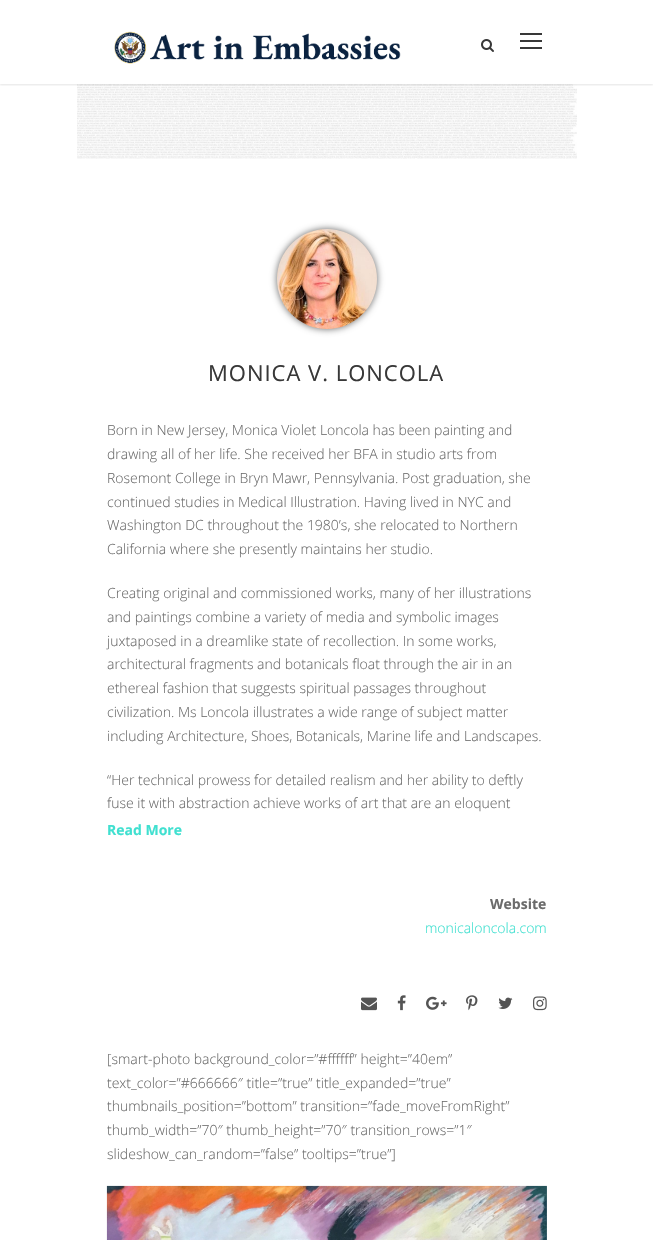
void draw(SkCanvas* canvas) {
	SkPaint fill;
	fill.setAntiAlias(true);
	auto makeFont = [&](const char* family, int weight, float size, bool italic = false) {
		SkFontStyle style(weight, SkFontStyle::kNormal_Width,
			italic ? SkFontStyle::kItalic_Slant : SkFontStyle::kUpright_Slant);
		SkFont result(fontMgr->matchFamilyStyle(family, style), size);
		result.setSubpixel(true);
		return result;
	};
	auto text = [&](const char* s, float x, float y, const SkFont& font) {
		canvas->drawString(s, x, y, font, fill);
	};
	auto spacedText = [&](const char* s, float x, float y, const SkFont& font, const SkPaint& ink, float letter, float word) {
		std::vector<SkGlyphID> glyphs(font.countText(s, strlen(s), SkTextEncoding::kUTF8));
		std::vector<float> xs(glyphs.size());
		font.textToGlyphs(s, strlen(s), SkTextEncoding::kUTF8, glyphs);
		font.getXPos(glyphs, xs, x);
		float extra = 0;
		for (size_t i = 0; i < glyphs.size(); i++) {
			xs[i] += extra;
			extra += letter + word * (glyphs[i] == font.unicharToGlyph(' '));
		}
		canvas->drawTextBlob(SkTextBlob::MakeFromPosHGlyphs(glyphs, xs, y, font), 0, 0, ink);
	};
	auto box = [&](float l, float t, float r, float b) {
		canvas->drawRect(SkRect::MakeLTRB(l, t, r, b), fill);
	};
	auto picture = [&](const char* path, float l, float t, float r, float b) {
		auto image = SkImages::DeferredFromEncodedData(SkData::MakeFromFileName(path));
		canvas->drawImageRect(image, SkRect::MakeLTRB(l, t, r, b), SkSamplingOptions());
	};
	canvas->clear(0xFFFFFFFF);
	picture("image2.png", 77, 84, 577, 159);
	canvas->save();
	canvas->clipRect(SkRect::MakeLTRB(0, 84, 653, 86));
	fill.setColor(0x1A000000);
	fill.setMaskFilter(SkMaskFilter::MakeBlur(kNormal_SkBlurStyle, 1));
	canvas->drawRect(SkRect::MakeLTRB(0, 1, 653, 85), fill);
	fill.setMaskFilter(nullptr);
	canvas->restore();
	picture("image0.png", 114, 31, 401, 64);
	picture("image1.png", 481, 39, 494, 52);
	fill.setColor(0xFF383838);
	box(520, 33, 542, 35);
	box(520, 40, 542, 42);
	box(520, 47, 542, 49);
	fill.setColor(0x99000000);
	fill.setMaskFilter(SkMaskFilter::MakeBlur(kNormal_SkBlurStyle, 3.5f));
	canvas->drawRoundRect(SkRect::MakeLTRB(277, 229, 377, 329), 50, 50, fill);
	fill.setMaskFilter(nullptr);
	picture("image3.png", 277, 229, 377, 329);
	picture("image4.png", 361, 997, 377, 1011);
	picture("image5.png", 397, 995, 406, 1011);
	picture("image6.png", 426, 996, 447, 1010);
	picture("image7.png", 466, 995, 478, 1011);
	picture("image8.png", 498, 997, 513, 1009);
	picture("image9.png", 533, 996, 547, 1011);
	picture("image10.png", 106, 1185, 547, 1240);
	auto font1 = makeFont("Open Sans", 400, 22);
	fill.setColor(0xFF383838);
	spacedText("MONICA V. LONCOLA", 208, 381, font1, fill, 1, 0);
	auto font2 = makeFont("Open Sans", 300, 14);
	fill.setColor(0xFF6B6B6B);
	text("Born in New Jersey, Monica Violet Loncola has been painting and", 107, 435, font2);
	text("drawing all of her life. She received her BFA in studio arts from", 107, 459, font2);
	text("Rosemont College in Bryn Mawr, Pennsylvania. Post graduation, she", 107, 483, font2);
	text("continued studies in Medical Illustration. Having lived in NYC and", 107, 507, font2);
	text("Washington DC throughout the 1980’s, she relocated to Northern", 107, 530, font2);
	text("California where she presently maintains her studio.", 107, 554, font2);
	text("Creating original and commissioned works, many of her illustrations", 107, 598, font2);
	text("and paintings combine a variety of media and symbolic images", 107, 622, font2);
	text("juxtaposed in a dreamlike state of recollection. In some works,", 107, 646, font2);
	text("architectural fragments and botanicals float through the air in an", 107, 669, font2);
	text("ethereal fashion that suggests spiritual passages throughout", 107, 693, font2);
	text("civilization. Ms Loncola illustrates a wide range of subject matter", 107, 717, font2);
	text("including Architecture, Shoes, Botanicals, Marine life and Landscapes.", 107, 741, font2);
	text("“Her technical prowess for detailed realism and her ability to deftly", 107, 785, font2);
	text("fuse it with abstraction achieve works of art that are an eloquent", 107, 808, font2);
	auto font3 = makeFont("Open Sans", 700, 14);
	fill.setColor(0xFF40E0D0);
	text("Read More", 107, 835, font3);
	fill.setColor(0xFF6B6B6B);
	text("Website", 490, 909, font3);
	fill.setColor(0xFF40E0D0);
	text("monicaloncola.com", 425, 933, font2);
	fill.setColor(0xFF6B6B6B);
	text("[smart-photo background_color=”#ffffff” height=”40em”", 107, 1064, font2);
	text("text_color=”#666666″ title=”true” title_expanded=”true”", 107, 1088, font2);
	text("thumbnails_position=”bottom” transition=”fade_moveFromRight”", 107, 1111, font2);
	text("thumb_width=”70″ thumb_height=”70″ transition_rows=”1″", 107, 1135, font2);
	text("slideshow_can_random=”false” tooltips=”true”]", 107, 1159, font2);
}
